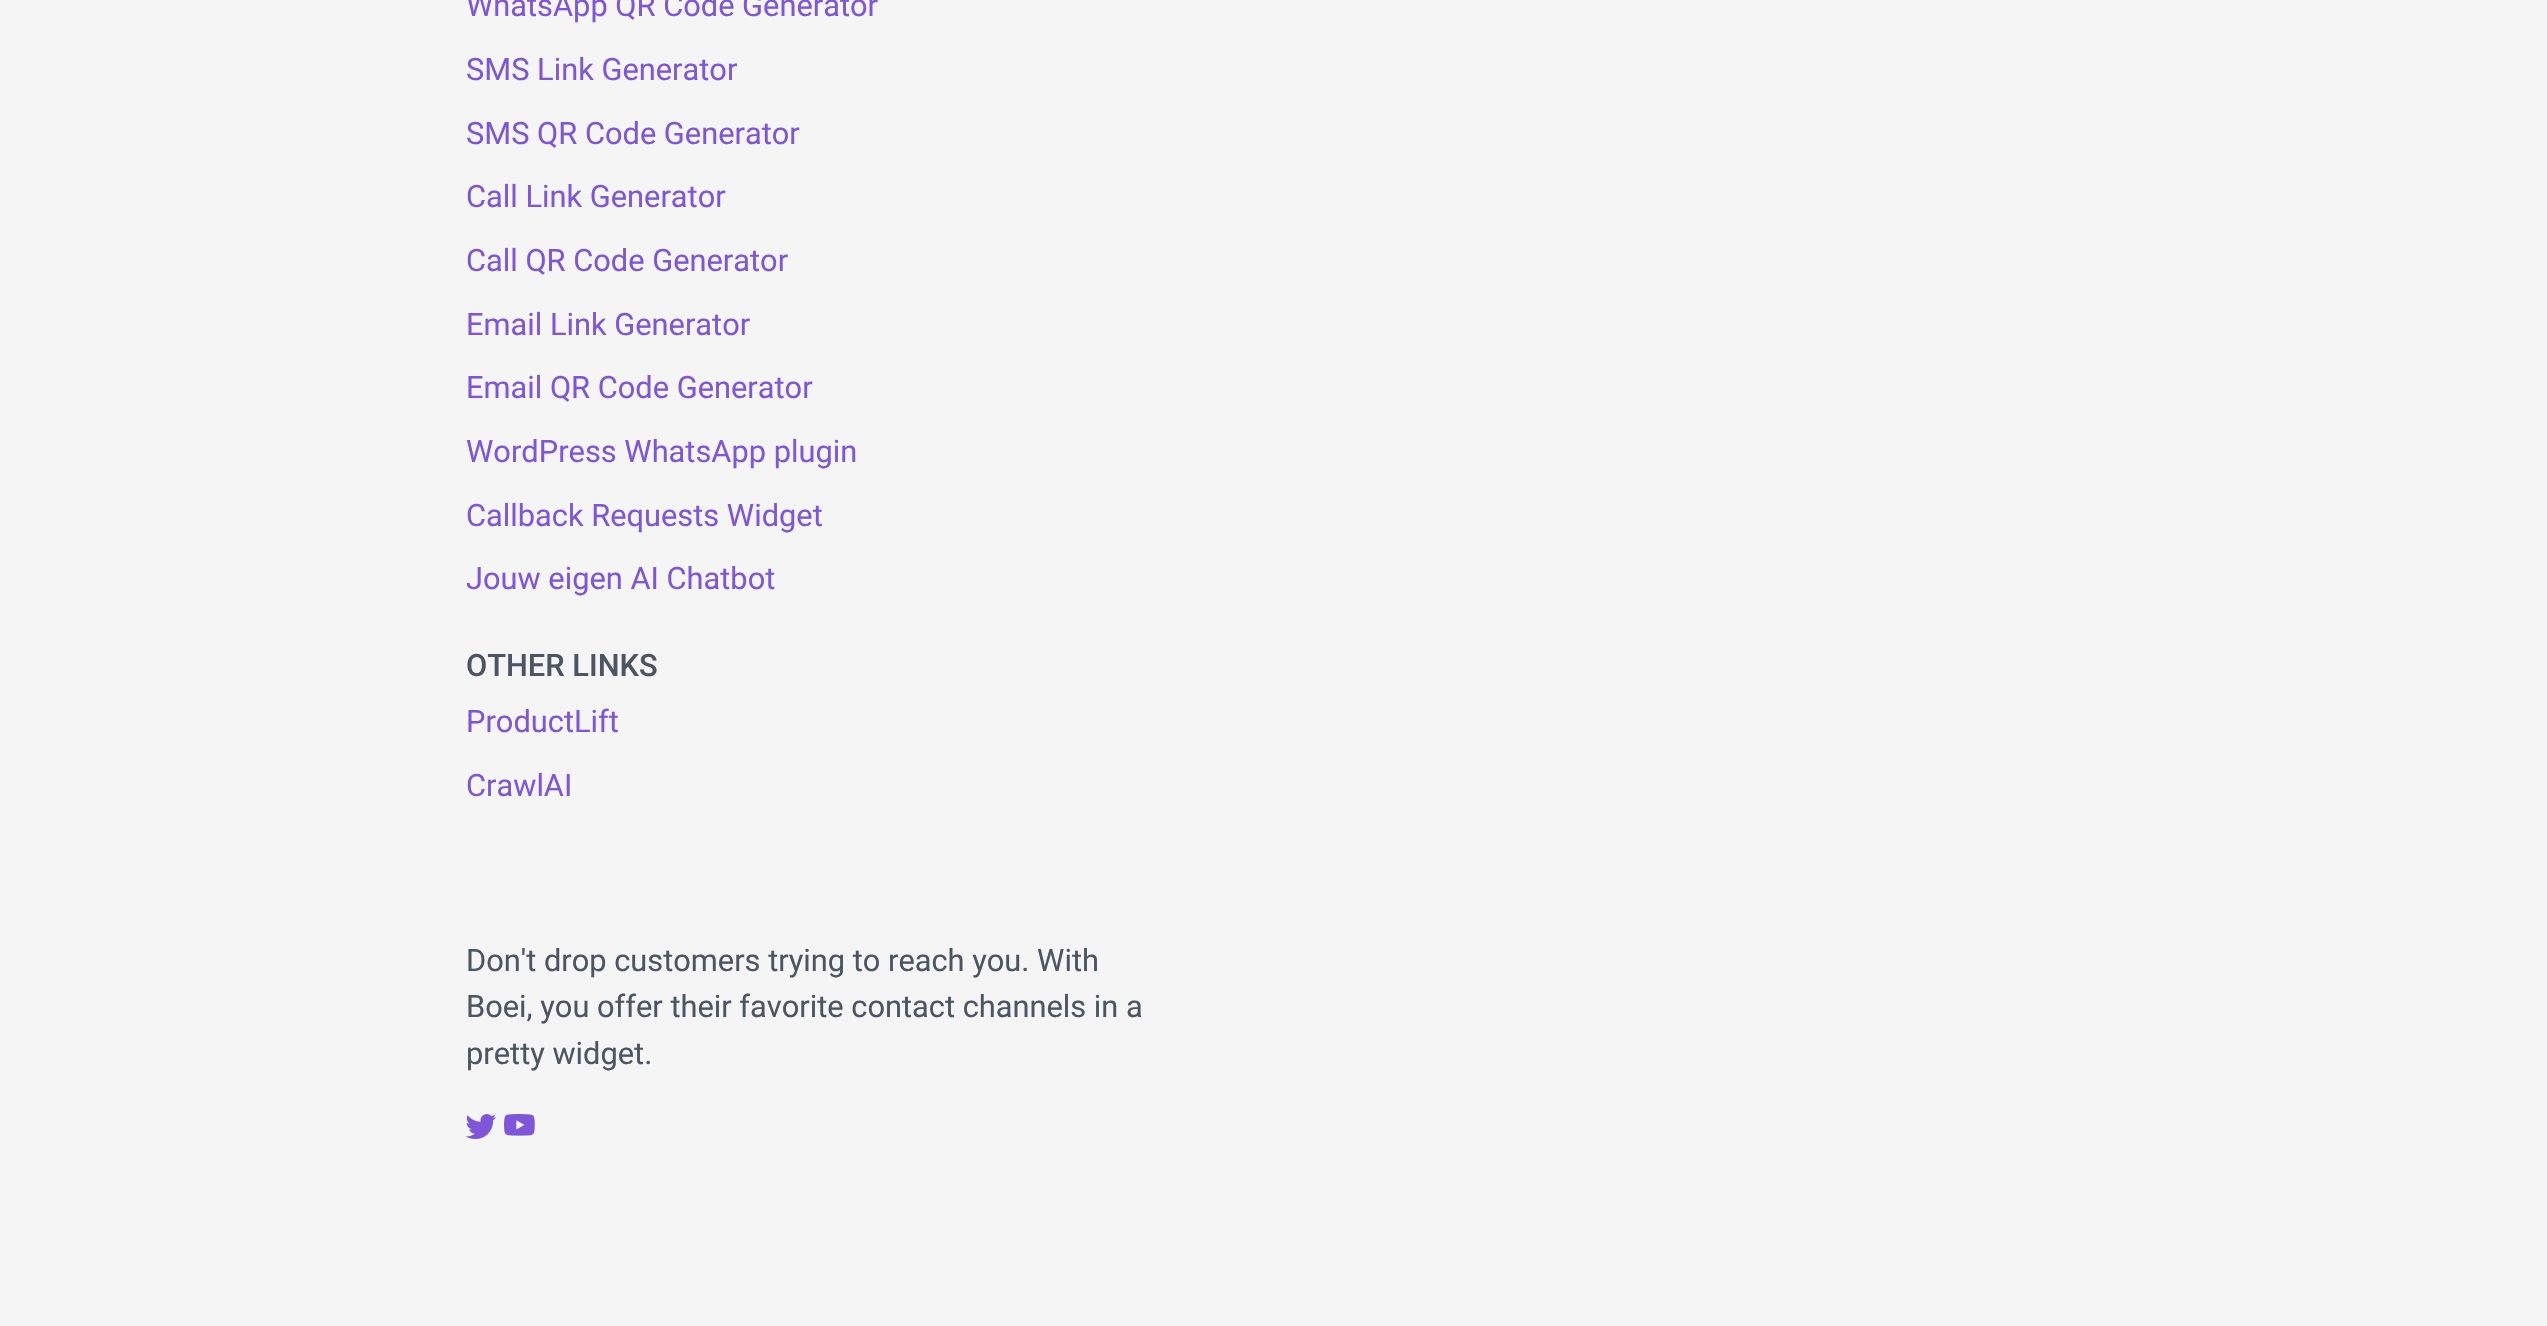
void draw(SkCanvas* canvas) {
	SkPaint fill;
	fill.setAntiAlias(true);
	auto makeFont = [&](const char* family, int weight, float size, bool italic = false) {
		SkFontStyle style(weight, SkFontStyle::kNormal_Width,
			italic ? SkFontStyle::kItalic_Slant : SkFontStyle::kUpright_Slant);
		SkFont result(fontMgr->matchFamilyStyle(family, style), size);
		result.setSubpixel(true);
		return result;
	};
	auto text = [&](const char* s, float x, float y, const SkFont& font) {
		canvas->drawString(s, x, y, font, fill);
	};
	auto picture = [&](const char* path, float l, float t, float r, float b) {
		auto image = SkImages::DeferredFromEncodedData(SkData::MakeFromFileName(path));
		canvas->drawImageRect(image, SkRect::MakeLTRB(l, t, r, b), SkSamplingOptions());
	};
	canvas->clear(0xFFF5F5F5);
	picture("image0.png", 465, 1114, 497, 1140);
	picture("image1.png", 504, 1114, 535, 1136);
	auto font1 = makeFont("Roboto", 400, 30.8f);
	fill.setColor(0xFF7F56D9);
	text("WhatsApp QR Code Generator", 466, 16, font1);
	text("SMS Link Generator", 466, 80, font1);
	text("SMS QR Code Generator", 466, 144, font1);
	text("Call Link Generator", 466, 207, font1);
	text("Call QR Code Generator", 466, 271, font1);
	text("Email Link Generator", 466, 335, font1);
	text("Email QR Code Generator", 466, 398, font1);
	text("WordPress WhatsApp plugin", 466, 462, font1);
	text("Callback Requests Widget", 466, 526, font1);
	text("Jouw eigen AI Chatbot", 466, 589, font1);
	auto font2 = makeFont("Roboto", 500, 30.8f);
	fill.setColor(0xFF4B5563);
	text("OTHER LINKS", 466, 676, font2);
	fill.setColor(0xFF7F56D9);
	text("ProductLift", 466, 732, font1);
	text("CrawlAI", 466, 796, font1);
	fill.setColor(0xFF4B5563);
	text("Don't drop customers trying to reach you. With", 466, 971, font1);
	text("Boei, you offer their favorite contact channels in a", 466, 1017, font1);
	text("pretty widget.", 466, 1064, font1);
}
